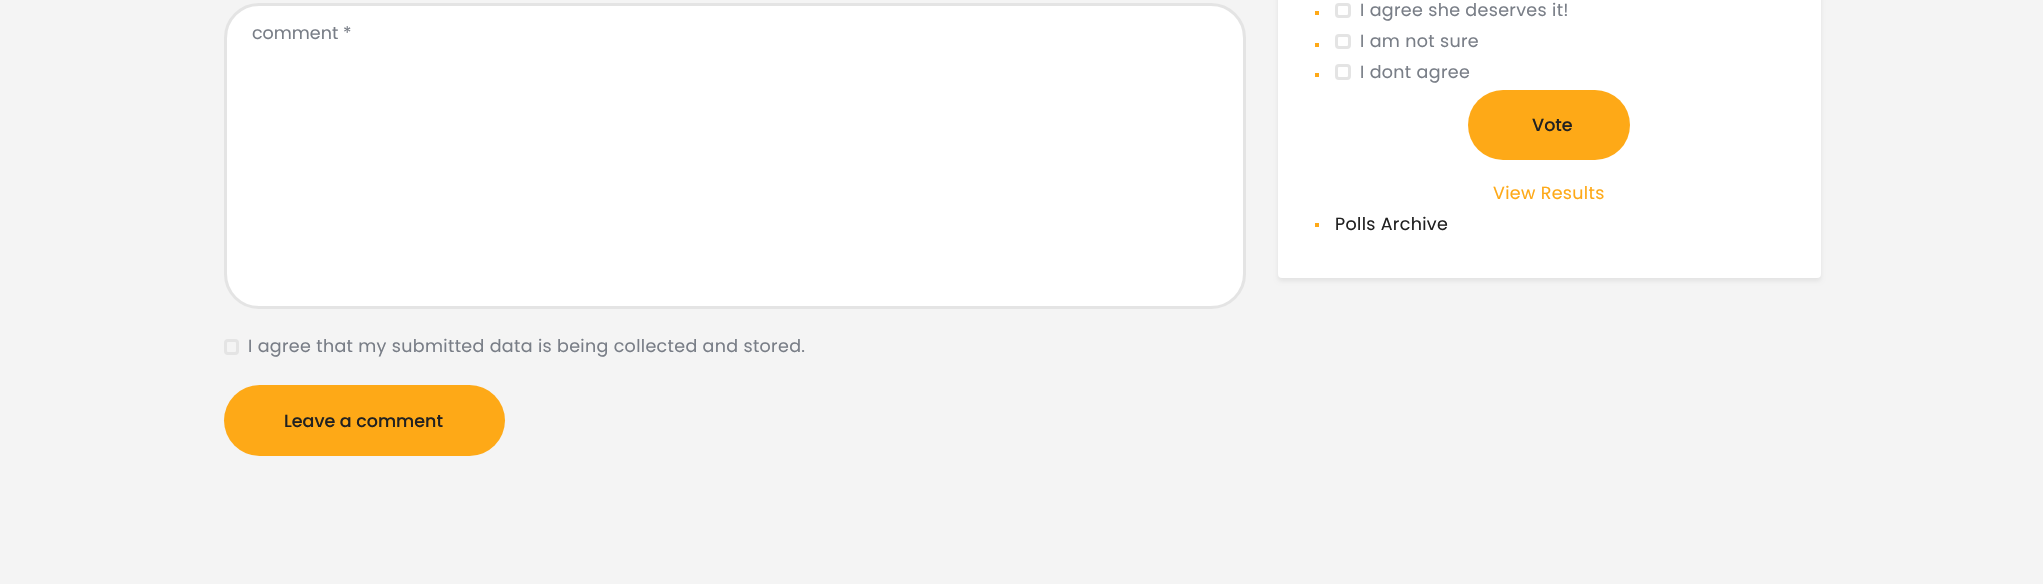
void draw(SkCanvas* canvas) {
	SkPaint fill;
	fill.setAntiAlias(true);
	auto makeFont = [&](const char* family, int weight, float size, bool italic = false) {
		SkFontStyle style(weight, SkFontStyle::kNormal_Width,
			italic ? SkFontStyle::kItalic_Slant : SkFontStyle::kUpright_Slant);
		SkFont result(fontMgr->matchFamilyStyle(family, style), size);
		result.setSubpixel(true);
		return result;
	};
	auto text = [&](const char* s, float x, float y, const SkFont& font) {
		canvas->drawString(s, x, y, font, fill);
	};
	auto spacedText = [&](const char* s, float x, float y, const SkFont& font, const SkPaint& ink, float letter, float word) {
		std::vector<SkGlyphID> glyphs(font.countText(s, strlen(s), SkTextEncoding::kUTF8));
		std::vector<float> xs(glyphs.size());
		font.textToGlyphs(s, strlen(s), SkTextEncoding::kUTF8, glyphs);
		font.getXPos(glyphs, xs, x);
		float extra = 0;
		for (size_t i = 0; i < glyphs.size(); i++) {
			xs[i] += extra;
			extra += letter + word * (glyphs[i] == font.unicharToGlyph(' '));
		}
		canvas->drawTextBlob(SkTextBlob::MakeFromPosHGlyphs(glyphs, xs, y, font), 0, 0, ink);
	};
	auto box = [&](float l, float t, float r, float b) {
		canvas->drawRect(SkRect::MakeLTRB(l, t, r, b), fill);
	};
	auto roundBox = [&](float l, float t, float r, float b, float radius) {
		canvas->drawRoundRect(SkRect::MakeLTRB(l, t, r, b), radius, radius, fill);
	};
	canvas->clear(0xFFF4F4F4);
	fill.setColor(0xFFFFFFFF);
	canvas->drawRoundRect(SkRect::MakeLTRB(225.5f, 4.5f, 1244.5f, 307.5f), 33.5f, 33.5f, fill);
	fill.setStyle(SkPaint::kStroke_Style);
	fill.setStrokeWidth(3);
	fill.setColor(0xFFE4E4E4);
	canvas->drawRoundRect(SkRect::MakeLTRB(225.5f, 4.5f, 1244.5f, 307.5f), 33.5f, 33.5f, fill);
	canvas->drawRoundRect(SkRect::MakeLTRB(225.5f, 340.5f, 237.5f, 353.5f), 2.5f, 2.5f, fill);
	fill.setStyle(SkPaint::kFill_Style);
	fill.setColor(0xFFFEA917);
	roundBox(224, 385, 505, 456, 35.5f);
	fill.setColor(0x12000000);
	fill.setMaskFilter(SkMaskFilter::MakeBlur(kNormal_SkBlurStyle, 2));
	canvas->drawRoundRect(SkRect::MakeLTRB(1278, -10, 1821, 281), 4, 4, fill);
	fill.setMaskFilter(nullptr);
	fill.setColor(0xFFFFFFFF);
	roundBox(1278, -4, 1821, 278, 4);
	fill.setColor(0xFFFEA917);
	box(1315, 11, 1319, 15);
	fill.setStyle(SkPaint::kStroke_Style);
	fill.setColor(0xFFE4E4E4);
	canvas->drawRoundRect(SkRect::MakeLTRB(1336.5f, 4.5f, 1349.5f, 16.5f), 2.5f, 2.5f, fill);
	fill.setStyle(SkPaint::kFill_Style);
	fill.setColor(0xFFFEA917);
	box(1315, 43, 1319, 47);
	fill.setStyle(SkPaint::kStroke_Style);
	fill.setColor(0xFFE4E4E4);
	canvas->drawRoundRect(SkRect::MakeLTRB(1336.5f, 35.5f, 1349.5f, 47.5f), 2.5f, 2.5f, fill);
	fill.setStyle(SkPaint::kFill_Style);
	fill.setColor(0xFFFEA917);
	box(1315, 73, 1319, 77);
	fill.setStyle(SkPaint::kStroke_Style);
	fill.setColor(0xFFE4E4E4);
	canvas->drawRoundRect(SkRect::MakeLTRB(1336.5f, 65.5f, 1349.5f, 78.5f), 2.5f, 2.5f, fill);
	fill.setStyle(SkPaint::kFill_Style);
	fill.setColor(0xFFFEA917);
	roundBox(1468, 90, 1630, 160, 35);
	box(1315, 223, 1319, 227);
	auto font1 = makeFont("Poppins", 400, 17.5f);
	fill.setColor(0xFF797E87);
	text("comment *", 252, 39, font1);
	spacedText("I agree that my submitted data is being collected and stored.", 248, 352, font1, fill, 0.33f, 0);
	auto font2 = makeFont("Poppins", 500, 17.5f);
	fill.setColor(0xFF212121);
	text("Leave a comment", 284, 427, font2);
	fill.setColor(0xFF797E87);
	spacedText("I agree she deserves it!", 1360, 16, font1, fill, 0.33f, 0);
	spacedText("I am not sure", 1360, 47, font1, fill, 0.33f, 0);
	spacedText("I dont agree", 1360, 78, font1, fill, 0.33f, 0);
	fill.setColor(0xFF212121);
	text("Vote", 1532, 131, font2);
	fill.setColor(0xFFFEA917);
	spacedText("View Results", 1493, 199, font1, fill, 0.33f, 0);
	fill.setColor(0xFF212121);
	spacedText("Polls Archive", 1335, 230, font1, fill, 0.33f, 0);
}
